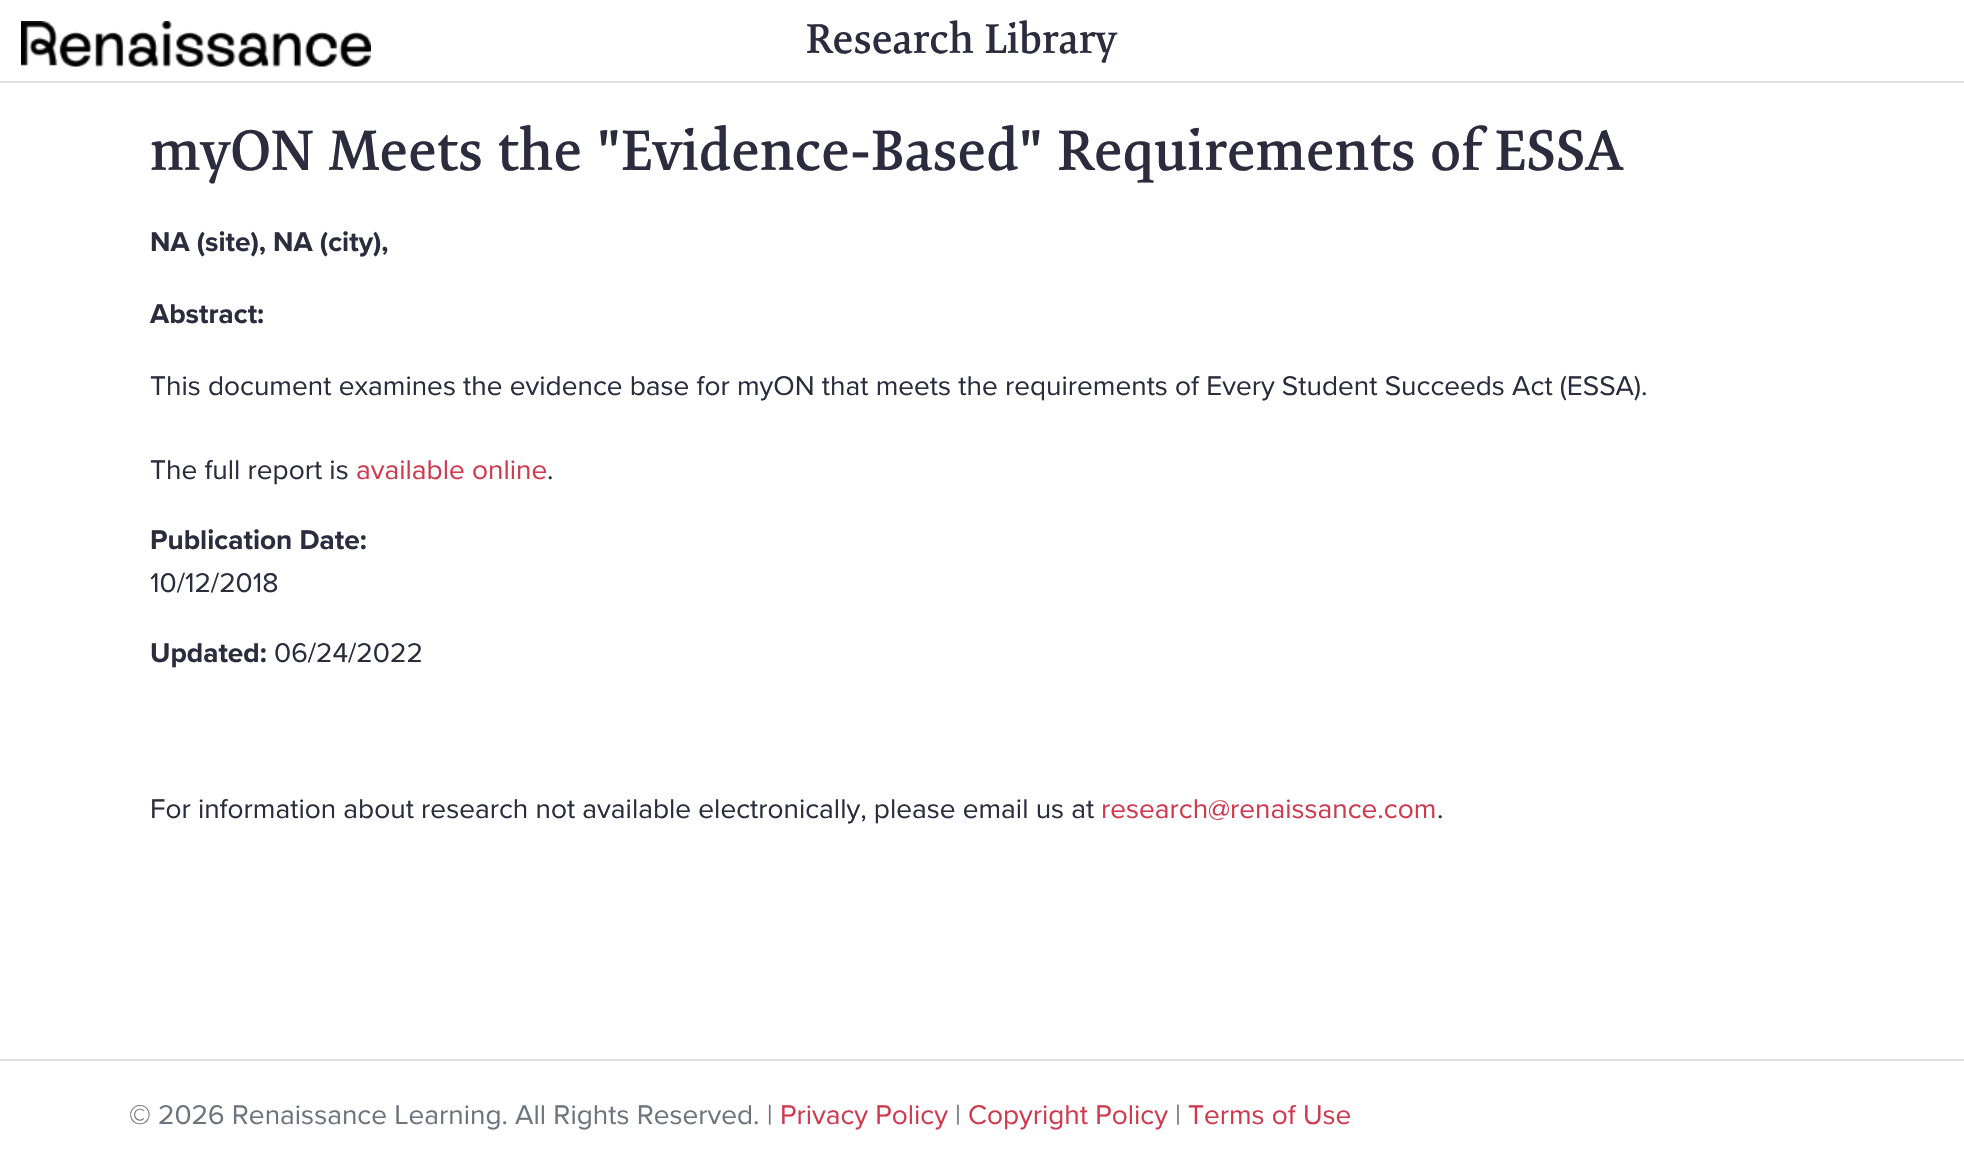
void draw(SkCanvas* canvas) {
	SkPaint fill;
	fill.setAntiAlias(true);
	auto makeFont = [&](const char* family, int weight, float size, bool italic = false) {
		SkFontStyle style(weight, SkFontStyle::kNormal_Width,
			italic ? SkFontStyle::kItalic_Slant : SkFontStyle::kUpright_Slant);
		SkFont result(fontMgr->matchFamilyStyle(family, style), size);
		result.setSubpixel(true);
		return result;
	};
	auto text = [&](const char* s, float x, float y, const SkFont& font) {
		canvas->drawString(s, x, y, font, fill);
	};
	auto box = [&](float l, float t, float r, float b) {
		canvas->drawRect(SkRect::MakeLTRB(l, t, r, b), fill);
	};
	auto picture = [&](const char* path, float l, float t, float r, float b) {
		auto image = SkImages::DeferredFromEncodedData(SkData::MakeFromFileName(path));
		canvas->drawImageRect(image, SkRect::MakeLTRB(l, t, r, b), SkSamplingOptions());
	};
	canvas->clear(0xFFFFFFFF);
	fill.setColor(0xFFDEE2E6);
	box(0, 81, 1964, 83);
	picture("image0.png", 21, 21, 371, 67);
	box(0, 1059, 1964, 1061);
	auto font1 = makeFont("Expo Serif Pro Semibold", 600, 42);
	fill.setColor(0xFF2C2C3F);
	text("Research Library", 806, 53, font1);
	auto font2 = makeFont("Expo Serif Pro Semibold", 600, 57.55f);
	text("myON Meets the \"Evidence-Based\" Requirements of ESSA", 150, 170, font2);
	auto font3 = makeFont("Proxima Nova", 700, 28);
	text("NA (site), NA (city),", 150, 251, font3);
	text("Abstract:", 150, 323, font3);
	auto font4 = makeFont("Proxima Nova", 400, 28);
	text("This document examines the evidence base for myON that meets the requirements of Every Student Succeeds Act (ESSA).", 150, 395, font4);
	text("The full report is", 150, 479, font4);
	fill.setColor(0xFFCF3A4E);
	text("available online", 356, 479, font4);
	fill.setColor(0xFF2C2C3F);
	text(".", 547, 479, font4);
	text("Publication Date:", 150, 549, font3);
	text("10/12/2018", 150, 592, font4);
	text("Updated:", 150, 662, font3);
	text("06/24/2022", 274, 662, font4);
	text("For information about research not available electronically, please email us at", 150, 818, font4);
	fill.setColor(0xFFCF3A4E);
	text("research@renaissance.com", 1101, 818, font4);
	fill.setColor(0xFF2C2C3F);
	text(".", 1437, 818, font4);
	fill.setColor(0xFF6C757D);
	text("© 2026 Renaissance Learning. All Rights Reserved. |", 129, 1124, font4);
	fill.setColor(0xFFCF3A4E);
	text("Privacy Policy", 780, 1124, font4);
	fill.setColor(0xFF6C757D);
	text("|", 955, 1124, font4);
	fill.setColor(0xFFCF3A4E);
	text("Copyright Policy", 968, 1124, font4);
	fill.setColor(0xFF6C757D);
	text("|", 1175, 1124, font4);
	fill.setColor(0xFFCF3A4E);
	text("Terms of Use", 1188, 1124, font4);
}
